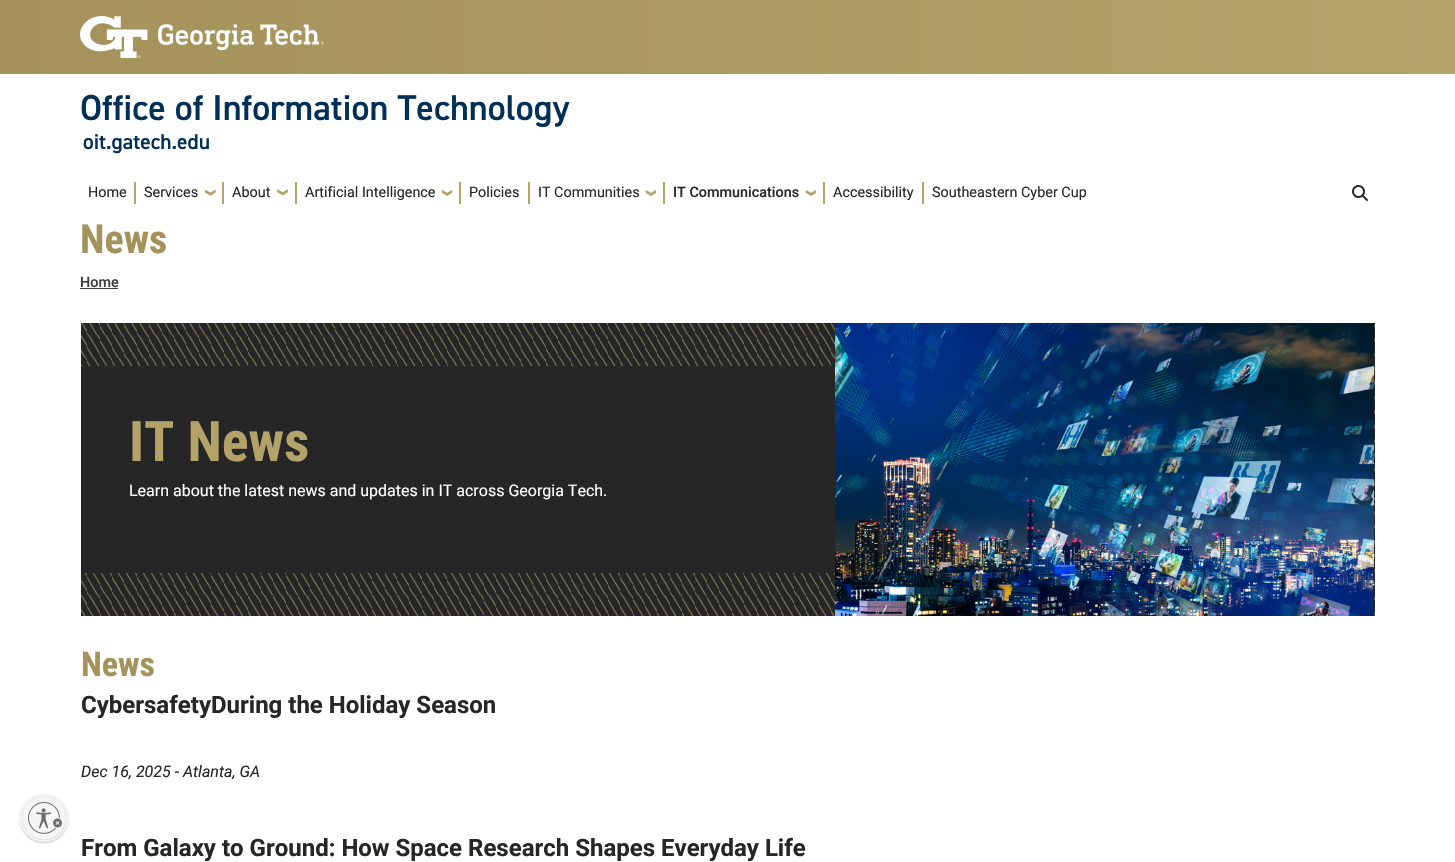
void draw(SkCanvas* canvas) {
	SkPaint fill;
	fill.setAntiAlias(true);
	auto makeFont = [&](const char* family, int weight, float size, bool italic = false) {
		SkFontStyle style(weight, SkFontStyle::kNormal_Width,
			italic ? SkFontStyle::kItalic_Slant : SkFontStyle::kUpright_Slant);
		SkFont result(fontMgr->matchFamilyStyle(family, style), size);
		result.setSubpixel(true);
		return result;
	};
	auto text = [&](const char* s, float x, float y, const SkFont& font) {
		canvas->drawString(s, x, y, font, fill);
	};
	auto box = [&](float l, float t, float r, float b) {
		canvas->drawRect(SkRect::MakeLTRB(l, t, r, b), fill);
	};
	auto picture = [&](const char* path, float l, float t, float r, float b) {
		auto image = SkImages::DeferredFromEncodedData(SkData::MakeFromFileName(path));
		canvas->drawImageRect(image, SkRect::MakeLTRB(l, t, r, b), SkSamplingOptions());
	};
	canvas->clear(0xFFFFFFFF);
	fill.setColor(0x3D000000);
	fill.setMaskFilter(SkMaskFilter::MakeBlur(kNormal_SkBlurStyle, 1));
	canvas->drawRoundRect(SkRect::MakeLTRB(20, 795, 68, 843), 24, 24, fill);
	fill.setMaskFilter(nullptr);
	fill.setStyle(SkPaint::kStroke_Style);
	fill.setStrokeWidth(2);
	fill.setColor(0xFFF5F5F5);
	canvas->drawCircle(44, 818, 23, fill);
	canvas->save();
	canvas->clipPath(SkPathBuilder().moveTo(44, 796).cubicTo(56, 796, 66, 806, 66, 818).cubicTo(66, 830, 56, 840, 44, 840).cubicTo(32, 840, 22, 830, 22, 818).cubicTo(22, 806, 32, 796, 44, 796).close().detach(), true);
	fill.setStyle(SkPaint::kFill_Style);
	fill.setColor(0x3D000000);
	fill.setMaskFilter(SkMaskFilter::MakeBlur(kNormal_SkBlurStyle, 1));
	canvas->drawRoundRect(SkRect::MakeLTRB(22, 797, 66, 841), 22, 22, fill);
	fill.setMaskFilter(nullptr);
	canvas->restore();
	fill.setColor(0xFFF5F5F5);
	canvas->drawCircle(44, 818, 22, fill);
	picture("image0.png", 28, 802, 62, 834);
	{
		const SkColor colors[] = {0xFFA4925A, 0xFFB3A369};
		const float stops[] = {0, 1};
		const SkPoint ends[] = {{0, 37}, {1455, 37}};
		fill.setShader(SkGradientShader::MakeLinear(ends, colors, stops, 2, SkTileMode::kClamp));
		fill.setAlpha(255);
	}
	box(0, 0, 1455, 74);
	picture("image1.png", 80, 16, 324, 58);
	fill.setShader(nullptr);
	fill.setColor(0xFFB3A369);
	box(134, 182, 136, 204);
	box(222, 182, 224, 204);
	picture("image2.png", 205, 189, 216, 196);
	box(295, 182, 297, 204);
	picture("image3.png", 277, 189, 288, 196);
	box(459, 182, 461, 204);
	picture("image4.png", 441, 189, 453, 196);
	box(528, 182, 530, 204);
	box(663, 182, 665, 204);
	picture("image5.png", 645, 190, 657, 196);
	box(823, 182, 825, 204);
	picture("image6.png", 805, 189, 817, 196);
	box(922, 182, 924, 204);
	picture("image7.png", 1352, 185, 1368, 201);
	fill.setColor(0xFF3B3B3B);
	box(80, 288, 118, 289);
	fill.setColor(0xFF262626);
	box(81, 323, 1375, 616);
	picture("image8.png", 81, 323, 1375, 616);
	box(81, 366, 835, 573);
	picture("image9.png", 835, 323, 1374, 616);
	auto font1 = makeFont("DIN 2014", 600, 36);
	fill.setColor(0xFF003057);
	text("Office of Information Technology", 80, 120, font1);
	auto font2 = makeFont("DIN 2014", 600, 21.5f);
	text("oit.gatech.edu", 83, 149, font2);
	auto font3 = makeFont("Roboto", 400, 14.4f);
	fill.setColor(0xFF262626);
	text("Home", 88, 197, font3);
	text("Services", 144, 197, font3);
	text("About", 232, 197, font3);
	text("Artificial Intelligence", 305, 197, font3);
	text("Policies", 469, 197, font3);
	text("IT Communities", 538, 197, font3);
	auto font4 = makeFont("Roboto", 500, 14.4f);
	text("IT Communications", 673, 197, font4);
	text("Accessibility", 833, 197, font3);
	text("Southeastern Cyber Cup", 932, 197, font3);
	auto font5 = makeFont("Roboto Condensed", 700, 40);
	fill.setColor(0xFFA4925A);
	text("News", 80, 253, font5);
	fill.setColor(0xFF3B3B3B);
	text("Home", 80, 287, font4);
	auto font6 = makeFont("Roboto Condensed", 700, 56);
	fill.setColor(0xFFB3A369);
	text("IT News", 129, 461, font6);
	auto font7 = makeFont("Roboto", 400, 16);
	fill.setColor(0xFFFFFFFF);
	text("Learn about the latest news and updates in IT across Georgia Tech.", 129, 496, font7);
	auto font8 = makeFont("Roboto Condensed", 700, 34);
	fill.setColor(0xFFA4925A);
	text("News", 81, 676, font8);
	auto font9 = makeFont("Roboto", 700, 24);
	fill.setColor(0xFF262626);
	text("Cybersafety During the Holiday Season", 81, 713, font9);
	auto font10 = makeFont("Roboto", 400, 16, true);
	text("Dec 16, 2025 - Atlanta, GA", 81, 777, font10);
	text("From Galaxy to Ground: How Space Research Shapes Everyday Life", 81, 856, font9);
}
